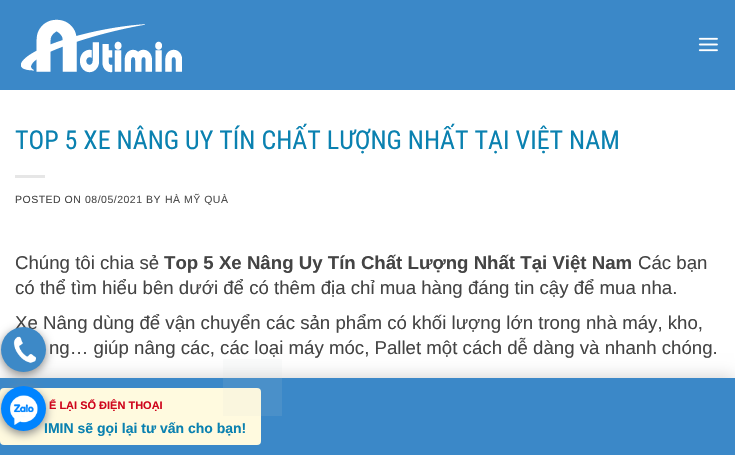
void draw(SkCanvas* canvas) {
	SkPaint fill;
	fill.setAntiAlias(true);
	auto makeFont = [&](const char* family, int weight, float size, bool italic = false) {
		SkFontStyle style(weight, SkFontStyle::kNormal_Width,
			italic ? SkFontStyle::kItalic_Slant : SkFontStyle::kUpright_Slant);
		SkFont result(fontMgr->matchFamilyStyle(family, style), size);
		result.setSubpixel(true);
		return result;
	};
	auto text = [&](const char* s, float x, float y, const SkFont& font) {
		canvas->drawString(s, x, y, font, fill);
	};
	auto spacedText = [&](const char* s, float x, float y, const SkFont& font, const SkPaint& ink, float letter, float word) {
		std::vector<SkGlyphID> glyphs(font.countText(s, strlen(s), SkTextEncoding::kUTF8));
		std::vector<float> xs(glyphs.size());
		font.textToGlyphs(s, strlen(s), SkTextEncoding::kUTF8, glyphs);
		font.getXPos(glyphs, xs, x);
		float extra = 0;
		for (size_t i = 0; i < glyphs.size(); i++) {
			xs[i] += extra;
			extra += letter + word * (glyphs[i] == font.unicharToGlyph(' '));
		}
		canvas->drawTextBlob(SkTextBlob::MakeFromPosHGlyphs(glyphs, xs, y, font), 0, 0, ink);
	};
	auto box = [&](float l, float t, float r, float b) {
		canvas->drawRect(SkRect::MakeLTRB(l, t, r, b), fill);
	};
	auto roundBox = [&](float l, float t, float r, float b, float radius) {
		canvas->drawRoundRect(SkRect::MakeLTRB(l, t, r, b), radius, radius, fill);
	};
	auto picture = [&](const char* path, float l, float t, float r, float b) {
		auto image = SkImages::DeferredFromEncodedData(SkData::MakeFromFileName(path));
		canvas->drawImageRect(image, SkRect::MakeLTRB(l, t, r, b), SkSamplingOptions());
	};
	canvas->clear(0xFFFFFFFF);
	fill.setColor(0xFF3B88C8);
	box(0, 0, 735, 90);
	picture("image0.png", 21, 19, 182, 73);
	picture("image1.png", 698, 37, 718, 52);
	fill.setColor(0xFFE6E6E6);
	box(15, 175, 45, 178);
	fill.setColor(0x2E000000);
	fill.setMaskFilter(SkMaskFilter::MakeBlur(kNormal_SkBlurStyle, 8));
	canvas->drawRect(SkRect::MakeLTRB(1, 377, 734, 452), fill);
	fill.setMaskFilter(nullptr);
	fill.setColor(0xFF3B88C8);
	box(0, 378, 735, 455);
	fill.setColor(0xFFFFFADF);
	roundBox(0, 388, 261, 445, 4);
	fill.setColor(0xFF888888);
	fill.setMaskFilter(SkMaskFilter::MakeBlur(kNormal_SkBlurStyle, 5));
	canvas->drawRoundRect(SkRect::MakeLTRB(1, 330, 46, 375), 22.5f, 22.5f, fill);
	fill.setMaskFilter(nullptr);
	fill.setMaskFilter(SkMaskFilter::MakeBlur(kNormal_SkBlurStyle, 5));
	canvas->drawRoundRect(SkRect::MakeLTRB(1, 389, 46, 434), 22.5f, 22.5f, fill);
	fill.setMaskFilter(nullptr);
	fill.setColor(0x1ACFD4DB);
	box(223, 359, 282, 416);
	auto font1 = makeFont("Roboto Condensed", 400, 26);
	fill.setColor(0xFF0A81B0);
	text("TOP 5 XE NÂNG UY TÍN CHẤT LƯỢNG NHẤT TẠI VIỆT NAM", 15, 149, font1);
	auto font2 = makeFont("Liberation Sans", 400, 10.5f);
	fill.setColor(0xFF444444);
	spacedText("POSTED ON", 15, 203, font2, fill, 0.5f, 0);
	fill.setColor(0xFF4F4F4F);
	spacedText("08/05/2021", 85, 203, font2, fill, 0.5f, 0);
	fill.setColor(0xFF444444);
	spacedText("BY", 146, 203, font2, fill, 0.5f, 0);
	fill.setColor(0xFF4F4F4F);
	spacedText("HÀ MỸ QUÀ", 165, 203, font2, fill, 0.5f, 0);
	auto font3 = makeFont("Liberation Sans", 400, 18.65f);
	fill.setColor(0xFF444444);
	text("Chúng tôi chia sẻ", 15, 269, font3);
	auto font4 = makeFont("Liberation Sans", 700, 18.65f);
	text("Top 5 Xe Nâng Uy Tín Chất Lượng Nhất Tại Việt Nam", 164, 269, font4);
	text("Các bạn", 638, 269, font3);
	text("có thể tìm hiểu bên dưới để có thêm địa chỉ mua hàng đáng tin cậy để mua nha.", 15, 294, font3);
	text("Xe Nâng dùng để vận chuyển các sản phẩm có khối lượng lớn trong nhà máy, kho,", 15, 329, font3);
	text("ng… giúp nâng các, các loại máy móc, Pallet một cách dễ dàng và nhanh chóng.", 49, 354, font3);
	fill.setColor(0xFF3D89C7);
	canvas->drawCircle(23.5f, 349.5f, 22.5f, fill);
	picture("image2.png", 13, 336, 36, 363);
	auto font5 = makeFont("Liberation Sans", 700, 11);
	fill.setColor(0xFFCF061D);
	text("Ể LẠI SỐ ĐIỆN THOẠI", 49, 409, font5);
	auto font6 = makeFont("Liberation Sans", 700, 14);
	fill.setColor(0xFF0A81B0);
	text("IMIN sẽ gọi lại tư vấn cho bạn!", 44, 433, font6);
	fill.setColor(0xFF0084FF);
	canvas->drawCircle(23.5f, 408.5f, 22.5f, fill);
	picture("image3.png", 10, 395, 38, 425);
}
